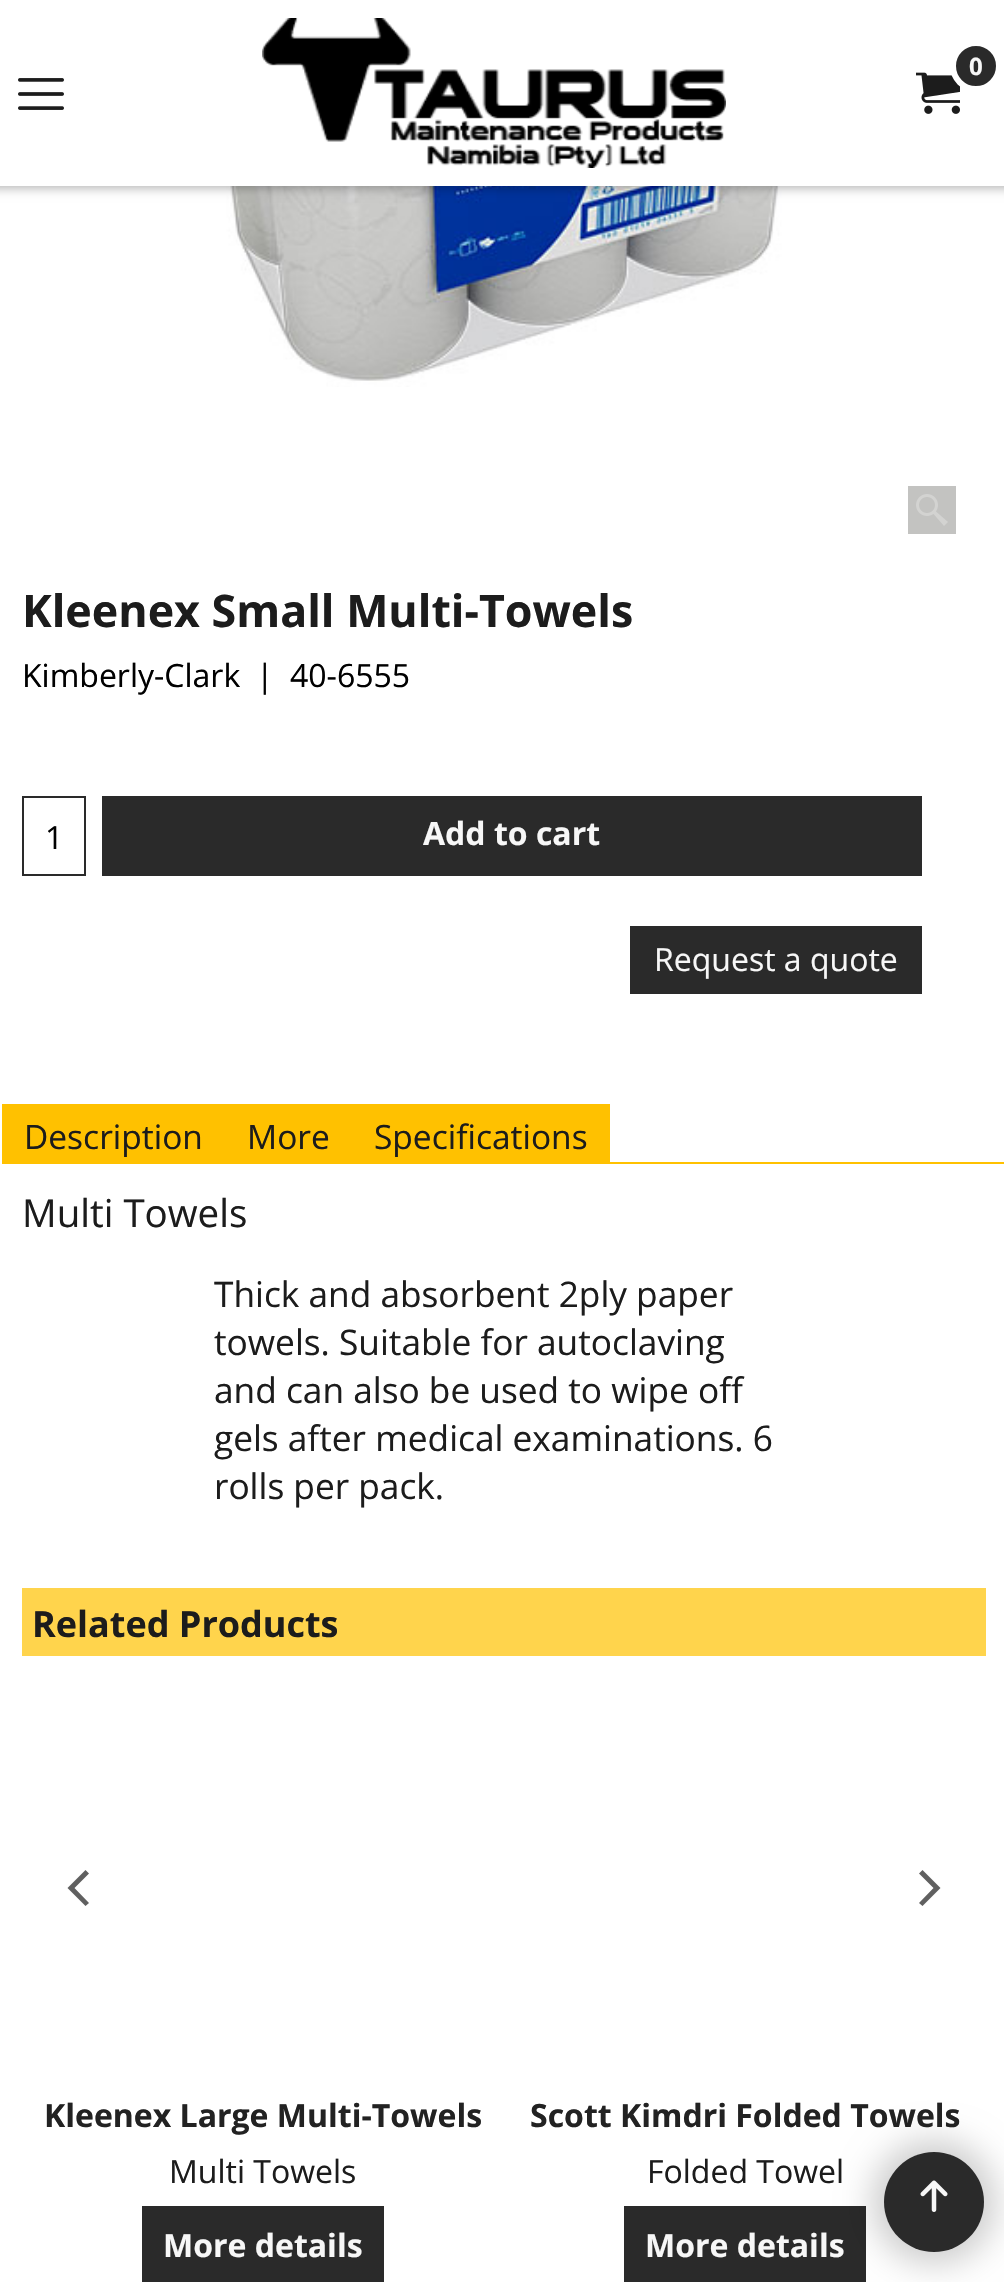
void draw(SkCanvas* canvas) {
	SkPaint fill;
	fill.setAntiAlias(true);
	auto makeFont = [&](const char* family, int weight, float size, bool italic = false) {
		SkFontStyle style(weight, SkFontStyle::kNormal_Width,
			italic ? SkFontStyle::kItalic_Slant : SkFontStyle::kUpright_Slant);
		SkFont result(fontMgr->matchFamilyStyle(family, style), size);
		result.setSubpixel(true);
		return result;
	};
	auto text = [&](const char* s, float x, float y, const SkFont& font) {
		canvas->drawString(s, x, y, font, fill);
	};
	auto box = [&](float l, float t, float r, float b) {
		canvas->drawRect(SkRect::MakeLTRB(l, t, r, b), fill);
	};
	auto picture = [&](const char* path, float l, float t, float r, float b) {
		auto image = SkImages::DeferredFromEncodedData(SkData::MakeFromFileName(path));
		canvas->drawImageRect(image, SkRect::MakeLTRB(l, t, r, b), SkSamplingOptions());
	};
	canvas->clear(0xFFFFFFFF);
	picture("image3.png", 205, 186, 803, 387);
	fill.setColor(0x4D000000);
	fill.setMaskFilter(SkMaskFilter::MakeBlur(kNormal_SkBlurStyle, 5));
	canvas->drawRect(SkRect::MakeLTRB(-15, -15, 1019, 188), fill);
	fill.setMaskFilter(nullptr);
	fill.setColor(0xFFFFFFFF);
	box(0, 0, 1004, 186);
	picture("image0.png", 262, 18, 726, 168);
	picture("image1.png", 916, 72, 960, 114);
	fill.setColor(0xFF2A2A2A);
	canvas->drawCircle(976, 66, 23, fill);
	fill.setStyle(SkPaint::kStroke_Style);
	fill.setStrokeWidth(6);
	fill.setColor(0xFFFFFFFF);
	canvas->drawCircle(976, 66, 23, fill);
	picture("image2.png", 18, 78, 64, 110);
	fill.setStyle(SkPaint::kFill_Style);
	fill.setColor(0xFFC3C3C1);
	box(908, 486, 956, 534);
	picture("image4.png", 916, 494, 948, 526);
	fill.setColor(0xFF2A2A2A);
	box(22, 796, 86, 876);
	fill.setColor(0xFFFFFFFF);
	box(24, 798, 84, 874);
	fill.setColor(0xFF2A2A2A);
	box(102, 796, 922, 876);
	box(630, 926, 922, 994);
	fill.setColor(0xFFFFC100);
	box(2, 1104, 226, 1164);
	box(226, 1104, 610, 1162);
	box(226, 1162, 1004, 1164);
	fill.setColor(0xFFFFD44C);
	box(22, 1588, 986, 1656);
	fill.setColor(0xFF606060);
	canvas->drawPath(SkPathBuilder().moveTo(85.5f, 1906).lineTo(89, 1903).lineTo(74.5f, 1888).lineTo(89, 1873.5f).lineTo(85.5f, 1870).lineTo(67.5f, 1888).close().detach(), fill);
	canvas->drawPath(SkPathBuilder().moveTo(922.5f, 1870).lineTo(919, 1873.5f).lineTo(933.5f, 1888).lineTo(919, 1903).lineTo(922.5f, 1906).lineTo(940.5f, 1888).close().detach(), fill);
	fill.setColor(0xFF2A2A2A);
	box(142, 2206, 384, 2282);
	box(624, 2206, 866, 2282);
	fill.setColor(0x33000000);
	fill.setMaskFilter(SkMaskFilter::MakeBlur(kNormal_SkBlurStyle, 17));
	canvas->drawRoundRect(SkRect::MakeLTRB(872, 2140, 996, 2264), 62, 62, fill);
	fill.setMaskFilter(nullptr);
	fill.setColor(0xFF2A2A2A);
	canvas->drawCircle(934, 2202, 50, fill);
	picture("image5.png", 920, 2180, 948, 2212);
	auto font1 = makeFont("Open Sans", 700, 24);
	fill.setColor(0xFFF7F7F7);
	text("0", 969, 75, font1);
	auto font2 = makeFont("Open Sans", 700, 44.75f);
	fill.setColor(0xFF1C1C1C);
	text("Kleenex Small Multi-Towels", 22, 627, font2);
	auto font3 = makeFont("Open Sans", 400, 32);
	fill.setColor(0xFF000000);
	text("Kimberly-Clark", 22, 687, font3);
	text("|", 256, 687, font3);
	text("40-6555", 290, 687, font3);
	text("1", 45, 849, font3);
	auto font4 = makeFont("Open Sans", 700, 32);
	fill.setColor(0xFFF7F7F7);
	text("Add to cart", 423, 845, font4);
	text("Request a quote", 654, 971, font3);
	auto font5 = makeFont("Open Sans", 400, 33.5f);
	fill.setColor(0xFF1C1C1C);
	text("Description", 24, 1149, font5);
	text("More", 247, 1149, font5);
	text("Specifications", 374, 1149, font5);
	auto font6 = makeFont("Open Sans", 400, 38.5f);
	text("Multi Towels", 22, 1227, font6);
	auto font7 = makeFont("Open Sans", 400, 35.25f);
	text("Thick and absorbent 2ply paper", 214, 1307, font7);
	text("towels. Suitable for autoclaving", 214, 1355, font7);
	text("and can also be used to wipe off", 214, 1403, font7);
	text("gels after medical examinations. 6", 214, 1451, font7);
	text("rolls per pack.", 214, 1499, font7);
	auto font8 = makeFont("Open Sans", 700, 36);
	text("Related Products", 32, 1637, font8);
	fill.setColor(0xFF222222);
	text("Kleenex Large Multi-Towels", 44, 2127, font4);
	fill.setColor(0xFF1C1C1C);
	text("Multi Towels", 169, 2183, font3);
	fill.setColor(0xFFF7F7F7);
	text("More details", 163, 2257, font4);
	fill.setColor(0xFF222222);
	text("Scott Kimdri Folded Towels", 530, 2127, font4);
	fill.setColor(0xFF1C1C1C);
	text("Folded Towel", 647, 2183, font3);
	fill.setColor(0xFFF7F7F7);
	text("More details", 645, 2257, font4);
}
